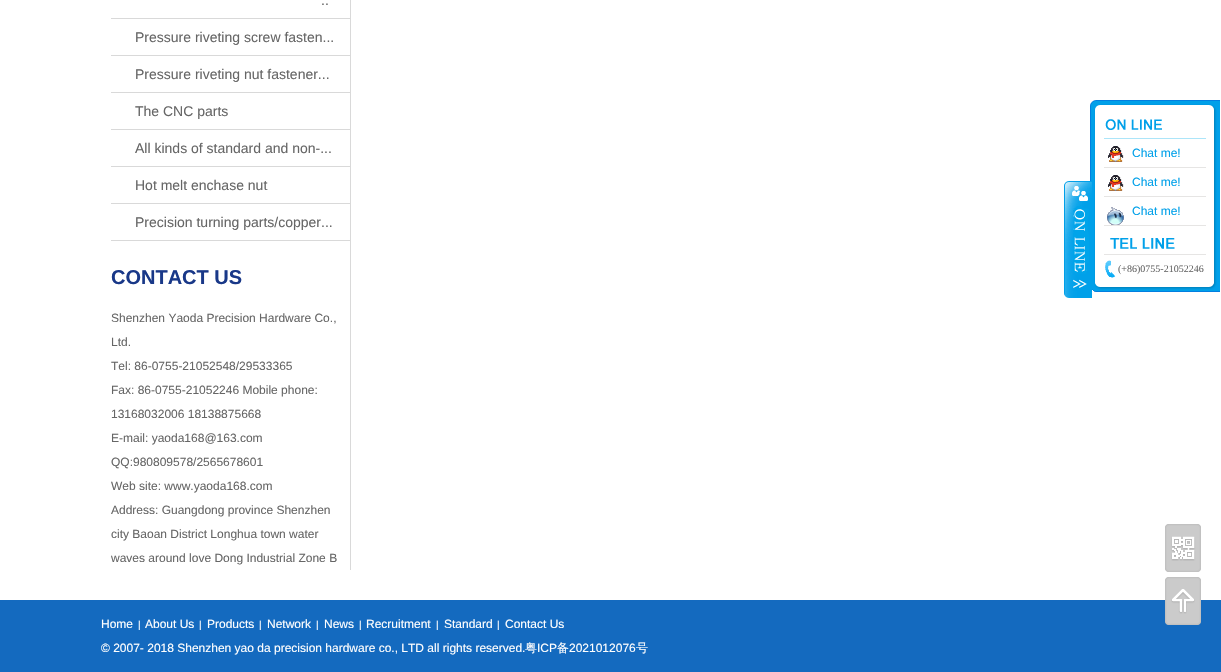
void draw(SkCanvas* canvas) {
	SkPaint fill;
	fill.setAntiAlias(true);
	auto makeFont = [&](const char* family, int weight, float size, bool italic = false) {
		SkFontStyle style(weight, SkFontStyle::kNormal_Width,
			italic ? SkFontStyle::kItalic_Slant : SkFontStyle::kUpright_Slant);
		SkFont result(fontMgr->matchFamilyStyle(family, style), size);
		result.setSubpixel(true);
		return result;
	};
	auto text = [&](const char* s, float x, float y, const SkFont& font) {
		canvas->drawString(s, x, y, font, fill);
	};
	auto box = [&](float l, float t, float r, float b) {
		canvas->drawRect(SkRect::MakeLTRB(l, t, r, b), fill);
	};
	auto picture = [&](const char* path, float l, float t, float r, float b) {
		auto image = SkImages::DeferredFromEncodedData(SkData::MakeFromFileName(path));
		canvas->drawImageRect(image, SkRect::MakeLTRB(l, t, r, b), SkSamplingOptions());
	};
	canvas->clear(0xFFFFFFFF);
	fill.setColor(0xFFD9D9D9);
	box(111, 18, 350, 19);
	box(111, 55, 350, 56);
	box(111, 92, 350, 93);
	box(111, 129, 350, 130);
	box(111, 166, 350, 167);
	box(111, 203, 350, 204);
	box(111, 240, 350, 241);
	box(350, 0, 351, 570);
	picture("image3.png", 1090, 110, 1220, 283);
	picture("image0.png", 1064, 181, 1092, 298);
	picture("image1.png", 1092, 283, 1220, 292);
	picture("image2.png", 1090, 100, 1220, 110);
	fill.setColor(0xFFACE5F9);
	box(1104, 138, 1206, 139);
	picture("image4.png", 1105, 119, 1162, 130);
	fill.setColor(0xFFE6E5E4);
	box(1104, 167, 1206, 168);
	picture("image5.png", 1108, 146, 1124, 162);
	box(1104, 196, 1206, 197);
	picture("image5.png", 1108, 175, 1124, 191);
	box(1104, 225, 1206, 226);
	picture("image6.png", 1107, 207, 1124, 225);
	box(1104, 254, 1206, 255);
	picture("image7.png", 1110, 238, 1175, 249);
	picture("image8.png", 1105, 260, 1116, 278);
	picture("image9.png", 1165, 524, 1201, 572);
	fill.setColor(0xFF146ABF);
	box(0, 600, 1221, 672);
	picture("image10.png", 1165, 577, 1201, 625);
	auto font1 = makeFont("Liberation Sans", 400, 14);
	fill.setColor(0xFF666666);
	text("..", 321, 5, font1);
	text("Pressure riveting screw fasten...", 135, 42, font1);
	text("Pressure riveting nut fastener...", 135, 79, font1);
	text("The CNC parts", 135, 116, font1);
	text("All kinds of standard and non-...", 135, 153, font1);
	text("Hot melt enchase nut", 135, 190, font1);
	text("Precision turning parts/copper...", 135, 227, font1);
	auto font2 = makeFont("Liberation Sans", 700, 20);
	fill.setColor(0xFF193888);
	text("CONTACT US", 111, 284, font2);
	auto font3 = makeFont("Liberation Sans", 400, 12);
	fill.setColor(0xFF666666);
	text("Shenzhen Yaoda Precision Hardware Co.,", 111, 322, font3);
	text("Ltd.", 111, 346, font3);
	text("Tel: 86-0755-21052548/29533365", 111, 370, font3);
	text("Fax: 86-0755-21052246 Mobile phone:", 111, 394, font3);
	text("13168032006 18138875668", 111, 418, font3);
	text("E-mail: yaoda168@163.com", 111, 442, font3);
	text("QQ:980809578/2565678601", 111, 466, font3);
	text("Web site: www.yaoda168.com", 111, 490, font3);
	text("Address: Guangdong province Shenzhen", 111, 514, font3);
	text("city Baoan District Longhua town water", 111, 538, font3);
	text("waves around love Dong Industrial Zone B", 111, 562, font3);
	fill.setColor(0xFF00A0E9);
	text("Chat me!", 1132, 157, font3);
	text("Chat me!", 1132, 186, font3);
	text("Chat me!", 1132, 215, font3);
	auto font4 = makeFont("Liberation Serif", 400, 10);
	fill.setColor(0xFF666666);
	text("(+86)0755-21052246", 1118, 272, font4);
	fill.setColor(0xFFFFFFFF);
	text("Home", 101, 628, font3);
	auto font5 = makeFont("Liberation Sans", 400, 10);
	text("|", 138, 628, font5);
	text("About Us", 145, 628, font3);
	text("|", 199, 628, font5);
	text("Products", 207, 628, font3);
	text("|", 259, 628, font5);
	text("Network", 267, 628, font3);
	text("|", 316, 628, font5);
	text("News", 324, 628, font3);
	text("|", 359, 628, font5);
	text("Recruitment", 366, 628, font3);
	text("|", 436, 628, font5);
	text("Standard", 444, 628, font3);
	text("|", 497, 628, font5);
	text("Contact Us", 505, 628, font3);
	canvas->save();
	canvas->clipRect(SkRect::MakeLTRB(101, 639, 1121, 657));
	text("© 2007- 2018 Shenzhen yao da precision hardware co., LTD all rights reserved.", 101, 652, font3);
	canvas->restore();
	auto font6 = makeFont("WenQuanYi Zen Hei", 500, 12);
	text("粤", 525, 652, font6);
	text("ICP", 537, 652, font3);
	text("备", 557, 652, font6);
	text("2021012076", 569, 652, font3);
	text("号", 636, 652, font6);
}
